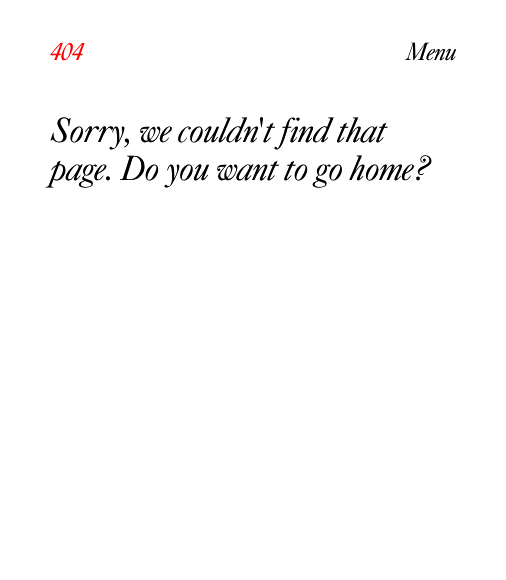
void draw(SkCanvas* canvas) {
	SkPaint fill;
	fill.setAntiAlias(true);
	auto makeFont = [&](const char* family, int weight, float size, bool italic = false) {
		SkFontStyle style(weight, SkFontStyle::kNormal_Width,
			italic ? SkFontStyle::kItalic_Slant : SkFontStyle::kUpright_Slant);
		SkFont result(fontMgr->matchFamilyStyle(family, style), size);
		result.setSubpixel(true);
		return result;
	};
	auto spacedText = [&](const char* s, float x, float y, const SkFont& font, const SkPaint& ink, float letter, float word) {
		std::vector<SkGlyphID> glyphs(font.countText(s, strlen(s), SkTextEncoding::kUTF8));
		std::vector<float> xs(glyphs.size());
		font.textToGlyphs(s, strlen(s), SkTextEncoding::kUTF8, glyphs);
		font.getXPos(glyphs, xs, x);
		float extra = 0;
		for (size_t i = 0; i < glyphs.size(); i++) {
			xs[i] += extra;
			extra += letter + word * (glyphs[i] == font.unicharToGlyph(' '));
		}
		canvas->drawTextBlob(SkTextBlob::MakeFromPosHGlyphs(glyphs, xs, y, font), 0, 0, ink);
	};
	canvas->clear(0xFFFFFFFF);
	auto font1 = makeFont("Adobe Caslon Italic", 400, 25);
	fill.setColor(0xFFFF0000);
	spacedText("404", 50, 60, font1, fill, -0.5f, 0);
	fill.setColor(0xFF000000);
	spacedText("Menu", 406, 60, font1, fill, -0.5f, 0);
	auto font2 = makeFont("Adobe Caslon Italic", 400, 35);
	spacedText("Sorry, we couldn't find that", 50, 142, font2, fill, -0.5f, 0);
	spacedText("page. Do you want to go home?", 50, 180, font2, fill, -0.5f, 0);
}
